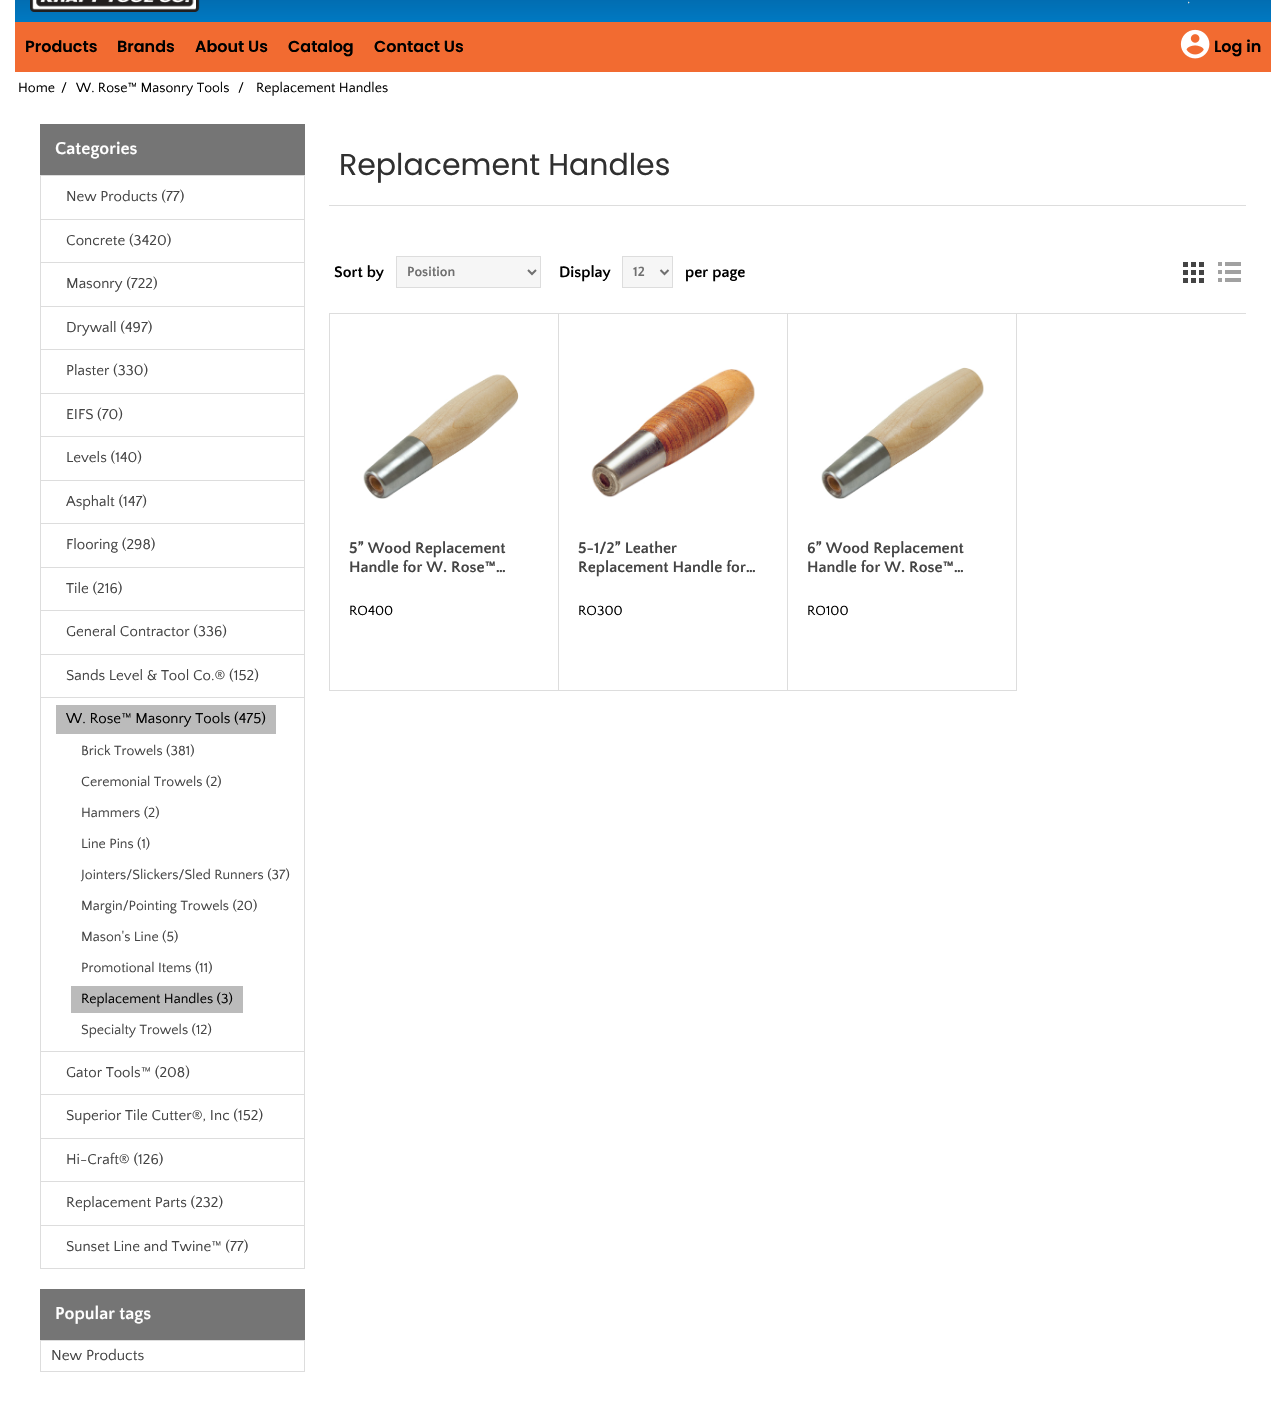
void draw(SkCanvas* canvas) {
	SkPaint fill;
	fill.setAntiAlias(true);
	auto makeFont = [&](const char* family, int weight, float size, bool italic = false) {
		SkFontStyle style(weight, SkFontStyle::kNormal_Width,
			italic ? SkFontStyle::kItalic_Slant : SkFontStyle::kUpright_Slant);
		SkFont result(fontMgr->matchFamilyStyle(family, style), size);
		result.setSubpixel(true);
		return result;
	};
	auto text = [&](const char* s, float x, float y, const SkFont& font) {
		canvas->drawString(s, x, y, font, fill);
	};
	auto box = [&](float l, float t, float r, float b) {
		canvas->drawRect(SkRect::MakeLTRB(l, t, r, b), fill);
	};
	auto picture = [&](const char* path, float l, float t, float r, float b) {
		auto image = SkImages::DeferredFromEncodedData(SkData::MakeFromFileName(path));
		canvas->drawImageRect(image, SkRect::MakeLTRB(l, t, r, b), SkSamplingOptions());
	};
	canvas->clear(0xFFFFFFFF);
	{
		const SkColor colors[] = {0xFF0A3D6E, 0xFF0079C2};
		const float stops[] = {0, 1};
		const SkPoint ends[] = {{643, -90}, {643, 22}};
		fill.setShader(SkGradientShader::MakeLinear(ends, colors, stops, 2, SkTileMode::kClamp));
		fill.setAlpha(255);
	}
	box(15, 0, 1271, 22);
	picture("image0.png", 30, 0, 200, 12);
	fill.setShader(nullptr);
	fill.setColor(0xFFF26B31);
	box(15, 22, 1271, 72);
	picture("image1.png", 1180, 29, 1210, 59);
	fill.setColor(0xFF757575);
	box(40, 124, 305, 175);
	fill.setColor(0xFFDDDDDD);
	box(40, 175, 305, 176);
	box(304, 176, 305, 1269);
	box(40, 1268, 305, 1269);
	box(40, 176, 41, 1269);
	box(41, 219, 304, 220);
	box(41, 262, 304, 263);
	box(41, 306, 304, 307);
	box(41, 349, 304, 350);
	box(41, 393, 304, 394);
	box(41, 436, 304, 437);
	box(41, 480, 304, 481);
	box(41, 523, 304, 524);
	box(41, 567, 304, 568);
	box(41, 610, 304, 611);
	box(41, 654, 304, 655);
	box(41, 697, 304, 698);
	box(41, 1051, 304, 1052);
	fill.setColor(0xFFBBBBBB);
	box(56, 705, 276, 734);
	box(71, 986, 243, 1013);
	fill.setColor(0xFFDDDDDD);
	box(41, 1094, 304, 1095);
	box(41, 1138, 304, 1139);
	box(41, 1181, 304, 1182);
	box(41, 1225, 304, 1226);
	fill.setColor(0xFF757575);
	box(40, 1289, 305, 1340);
	fill.setColor(0xFFDDDDDD);
	box(40, 1340, 305, 1341);
	box(304, 1341, 305, 1372);
	box(40, 1371, 305, 1372);
	box(40, 1341, 41, 1372);
	box(329, 205, 1246, 206);
	fill.setColor(0xFFF6F6F6);
	canvas->drawRect(SkRect::MakeLTRB(396.5f, 256.5f, 540.5f, 287.5f), fill);
	fill.setStyle(SkPaint::kStroke_Style);
	fill.setStrokeWidth(1);
	fill.setColor(0xFFDDDDDD);
	canvas->drawRect(SkRect::MakeLTRB(396.5f, 256.5f, 540.5f, 287.5f), fill);
	fill.setStrokeWidth(2);
	fill.setColor(0xFF707070);
	canvas->drawPath(SkPathBuilder().moveTo(528, 270).lineTo(532, 274).lineTo(536, 270).detach(), fill);
	fill.setStyle(SkPaint::kFill_Style);
	fill.setColor(0xFFF6F6F6);
	canvas->drawRect(SkRect::MakeLTRB(622.5f, 256.5f, 672.5f, 287.5f), fill);
	fill.setStyle(SkPaint::kStroke_Style);
	fill.setStrokeWidth(1);
	fill.setColor(0xFFDDDDDD);
	canvas->drawRect(SkRect::MakeLTRB(622.5f, 256.5f, 672.5f, 287.5f), fill);
	fill.setStrokeWidth(2);
	fill.setColor(0xFF707070);
	canvas->drawPath(SkPathBuilder().moveTo(660.5f, 270).lineTo(664.5f, 274).lineTo(668.5f, 270).detach(), fill);
	picture("image2.png", 1183, 262, 1204, 283);
	picture("image3.png", 1218, 262, 1241, 282);
	fill.setStyle(SkPaint::kFill_Style);
	fill.setColor(0xFFDDDDDD);
	box(329, 313, 1246, 314);
	box(329, 313, 330, 691);
	box(558, 314, 559, 691);
	box(330, 690, 559, 691);
	picture("image4.png", 363, 374, 519, 499);
	box(787, 314, 788, 691);
	box(559, 690, 788, 691);
	picture("image5.png", 591, 369, 755, 498);
	box(1016, 314, 1017, 691);
	box(788, 690, 1017, 691);
	picture("image6.png", 821, 367, 984, 499);
	auto font1 = makeFont("Quattrocento Sans", 400, 14);
	text(".", 1187, 3, font1);
	auto font2 = makeFont("Poppins", 600, 16);
	fill.setColor(0xFF000000);
	text("Products", 25, 52, font2);
	text("Brands", 117, 52, font2);
	text("About Us", 195, 52, font2);
	text("Catalog", 288, 52, font2);
	text("Contact Us", 374, 52, font2);
	text("Log in", 1214, 52, font2);
	text("Home", 18, 92, font1);
	text("/", 61, 92, font1);
	text("W. Rose™ Masonry Tools", 76, 92, font1);
	text("/", 238, 92, font1);
	text("Replacement Handles", 256, 92, font1);
	auto font3 = makeFont("Quattrocento Sans", 700, 18);
	fill.setColor(0xFFFFFFFF);
	text("Categories", 55, 154, font3);
	auto font4 = makeFont("Quattrocento Sans", 400, 15);
	fill.setColor(0xFF444444);
	text("New Products (77)", 66, 201, font4);
	text("Concrete (3420)", 66, 245, font4);
	text("Masonry (722)", 66, 288, font4);
	text("Drywall (497)", 66, 332, font4);
	text("Plaster (330)", 66, 375, font4);
	text("EIFS (70)", 66, 419, font4);
	text("Levels (140)", 66, 462, font4);
	text("Asphalt (147)", 66, 506, font4);
	text("Flooring (298)", 66, 549, font4);
	text("Tile (216)", 66, 593, font4);
	text("General Contractor (336)", 66, 636, font4);
	text("Sands Level & Tool Co.® (152)", 66, 680, font4);
	fill.setColor(0xFF000000);
	text("W. Rose™ Masonry Tools (475)", 66, 723, font4);
	fill.setColor(0xFF444444);
	text("Brick Trowels (381)", 81, 755, font1);
	text("Ceremonial Trowels (2)", 81, 786, font1);
	text("Hammers (2)", 81, 817, font1);
	text("Line Pins (1)", 81, 848, font1);
	text("Jointers/Slickers/Sled Runners (37)", 81, 879, font1);
	text("Margin/Pointing Trowels (20)", 81, 910, font1);
	text("Mason's Line (5)", 81, 941, font1);
	text("Promotional Items (11)", 81, 972, font1);
	fill.setColor(0xFF000000);
	text("Replacement Handles (3)", 81, 1003, font1);
	fill.setColor(0xFF444444);
	text("Specialty Trowels (12)", 81, 1034, font1);
	text("Gator Tools™ (208)", 66, 1077, font4);
	text("Superior Tile Cutter®, Inc (152)", 66, 1120, font4);
	text("Hi-Craft® (126)", 66, 1164, font4);
	text("Replacement Parts (232)", 66, 1207, font4);
	text("Sunset Line and Twine™ (77)", 66, 1251, font4);
	fill.setColor(0xFFFFFFFF);
	text("Popular tags", 55, 1319, font3);
	auto font5 = makeFont("Quattrocento Sans", 400, 15.25f);
	fill.setColor(0xFF444444);
	text("New Products", 51, 1360, font5);
	auto font6 = makeFont("Poppins", 400, 30);
	fill.setColor(0xFF303030);
	text("Replacement Handles", 339, 175, font6);
	auto font7 = makeFont("Quattrocento Sans", 700, 16);
	fill.setColor(0xFF000000);
	text("Sort by", 334, 277, font7);
	auto font8 = makeFont("Quattrocento Sans", 700, 14);
	fill.setColor(0xFF707070);
	text("Position", 407, 276, font8);
	fill.setColor(0xFF000000);
	text("Display", 559, 277, font7);
	fill.setColor(0xFF707070);
	text("12", 633, 276, font8);
	fill.setColor(0xFF000000);
	text("per page", 685, 277, font7);
	fill.setColor(0xFF444444);
	text("5” Wood Replacement", 349, 553, font7);
	text("Handle for W. Rose™…", 349, 572, font7);
	fill.setColor(0xFF000000);
	text("RO400", 349, 615, font1);
	fill.setColor(0xFF444444);
	text("5-1/2” Leather", 578, 553, font7);
	text("Replacement Handle for…", 578, 572, font7);
	fill.setColor(0xFF000000);
	text("RO300", 578, 615, font1);
	fill.setColor(0xFF444444);
	text("6” Wood Replacement", 807, 553, font7);
	text("Handle for W. Rose™…", 807, 572, font7);
	fill.setColor(0xFF000000);
	text("RO100", 807, 615, font1);
}
